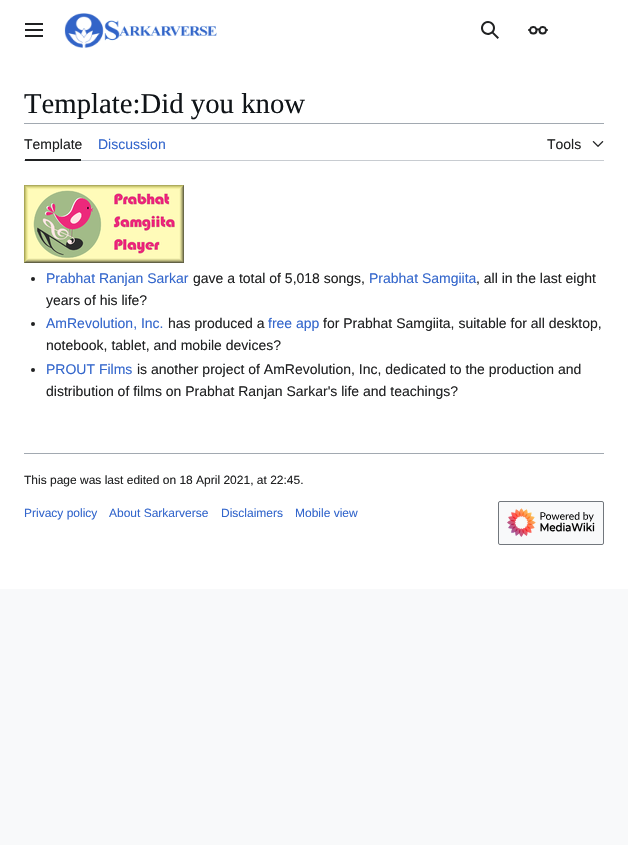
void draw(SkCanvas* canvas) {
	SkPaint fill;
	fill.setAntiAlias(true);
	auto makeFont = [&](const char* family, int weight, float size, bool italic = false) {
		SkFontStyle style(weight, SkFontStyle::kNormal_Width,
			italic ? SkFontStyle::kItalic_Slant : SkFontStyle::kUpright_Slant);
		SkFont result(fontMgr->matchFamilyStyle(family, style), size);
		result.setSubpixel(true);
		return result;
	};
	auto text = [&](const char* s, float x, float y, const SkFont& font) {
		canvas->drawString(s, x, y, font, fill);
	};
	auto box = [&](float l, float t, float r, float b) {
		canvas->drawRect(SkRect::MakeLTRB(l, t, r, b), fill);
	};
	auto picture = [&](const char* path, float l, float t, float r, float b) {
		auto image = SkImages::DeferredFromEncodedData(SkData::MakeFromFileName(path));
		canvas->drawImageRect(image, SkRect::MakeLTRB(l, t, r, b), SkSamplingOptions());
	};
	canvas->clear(0xFFF8F9FA);
	fill.setColor(0xFFFFFFFF);
	box(0, 0, 628, 589);
	picture("image0.png", 25, 23, 43, 37);
	picture("image1.png", 64, 13, 217, 48);
	picture("image2.png", 481, 21, 499, 39);
	picture("image3.png", 528, 26, 548, 35);
	fill.setColor(0xFFA2A9B1);
	box(24, 123, 604, 124);
	fill.setColor(0xFFC8CCD1);
	box(24, 160, 604, 161);
	fill.setColor(0xFF202122);
	box(25, 159, 81, 161);
	picture("image4.png", 592, 141, 604, 147);
	picture("image5.png", 24, 185, 184, 263);
	canvas->drawCircle(33, 279, 2, fill);
	canvas->drawCircle(33, 324, 2, fill);
	canvas->drawCircle(33, 370, 2, fill);
	fill.setColor(0xFFA2A9B1);
	box(24, 453, 604, 454);
	fill.setColor(0xFFF8F9FA);
	canvas->drawRoundRect(SkRect::MakeLTRB(498.5f, 501.5f, 603.5f, 544.5f), 1.5f, 1.5f, fill);
	fill.setStyle(SkPaint::kStroke_Style);
	fill.setStrokeWidth(1);
	fill.setColor(0xFF72777D);
	canvas->drawRoundRect(SkRect::MakeLTRB(498.5f, 501.5f, 603.5f, 544.5f), 1.5f, 1.5f, fill);
	picture("image6.png", 507, 508, 595, 537);
	auto font1 = makeFont("Liberation Serif", 400, 28.75f);
	fill.setStyle(SkPaint::kFill_Style);
	fill.setColor(0xFF101418);
	text("Template:Did you know", 24, 113, font1);
	auto font2 = makeFont("Liberation Sans", 400, 14);
	fill.setColor(0xFF202122);
	text("Template", 24, 149, font2);
	fill.setColor(0xFF3366CC);
	text("Discussion", 98, 149, font2);
	fill.setColor(0xFF202122);
	text("Tools", 547, 149, font2);
	fill.setColor(0xFF3366CC);
	text("Prabhat Ranjan Sarkar", 46, 283, font2);
	fill.setColor(0xFF202122);
	text("gave a total of 5,018 songs,", 193, 283, font2);
	fill.setColor(0xFF3366CC);
	text("Prabhat Samgiita", 369, 283, font2);
	fill.setColor(0xFF202122);
	text(", all in the last eight", 476, 283, font2);
	text("years of his life?", 46, 305, font2);
	fill.setColor(0xFF3366CC);
	text("AmRevolution, Inc.", 46, 328, font2);
	fill.setColor(0xFF202122);
	text("has produced a", 168, 328, font2);
	fill.setColor(0xFF3366CC);
	text("free app", 268, 328, font2);
	fill.setColor(0xFF202122);
	text("for Prabhat Samgiita, suitable for all desktop,", 323, 328, font2);
	text("notebook, tablet, and mobile devices?", 46, 350, font2);
	fill.setColor(0xFF3366CC);
	text("PROUT Films", 46, 374, font2);
	fill.setColor(0xFF202122);
	text("is another project of AmRevolution, Inc, dedicated to the production and", 137, 374, font2);
	text("distribution of films on Prabhat Ranjan Sarkar's life and teachings?", 46, 396, font2);
	auto font3 = makeFont("Liberation Sans", 400, 12);
	text("This page was last edited on 18 April 2021, at 22:45.", 24, 484, font3);
	fill.setColor(0xFF3366CC);
	text("Privacy policy", 24, 517, font3);
	text("About Sarkarverse", 109, 517, font3);
	text("Disclaimers", 221, 517, font3);
	text("Mobile view", 295, 517, font3);
}
